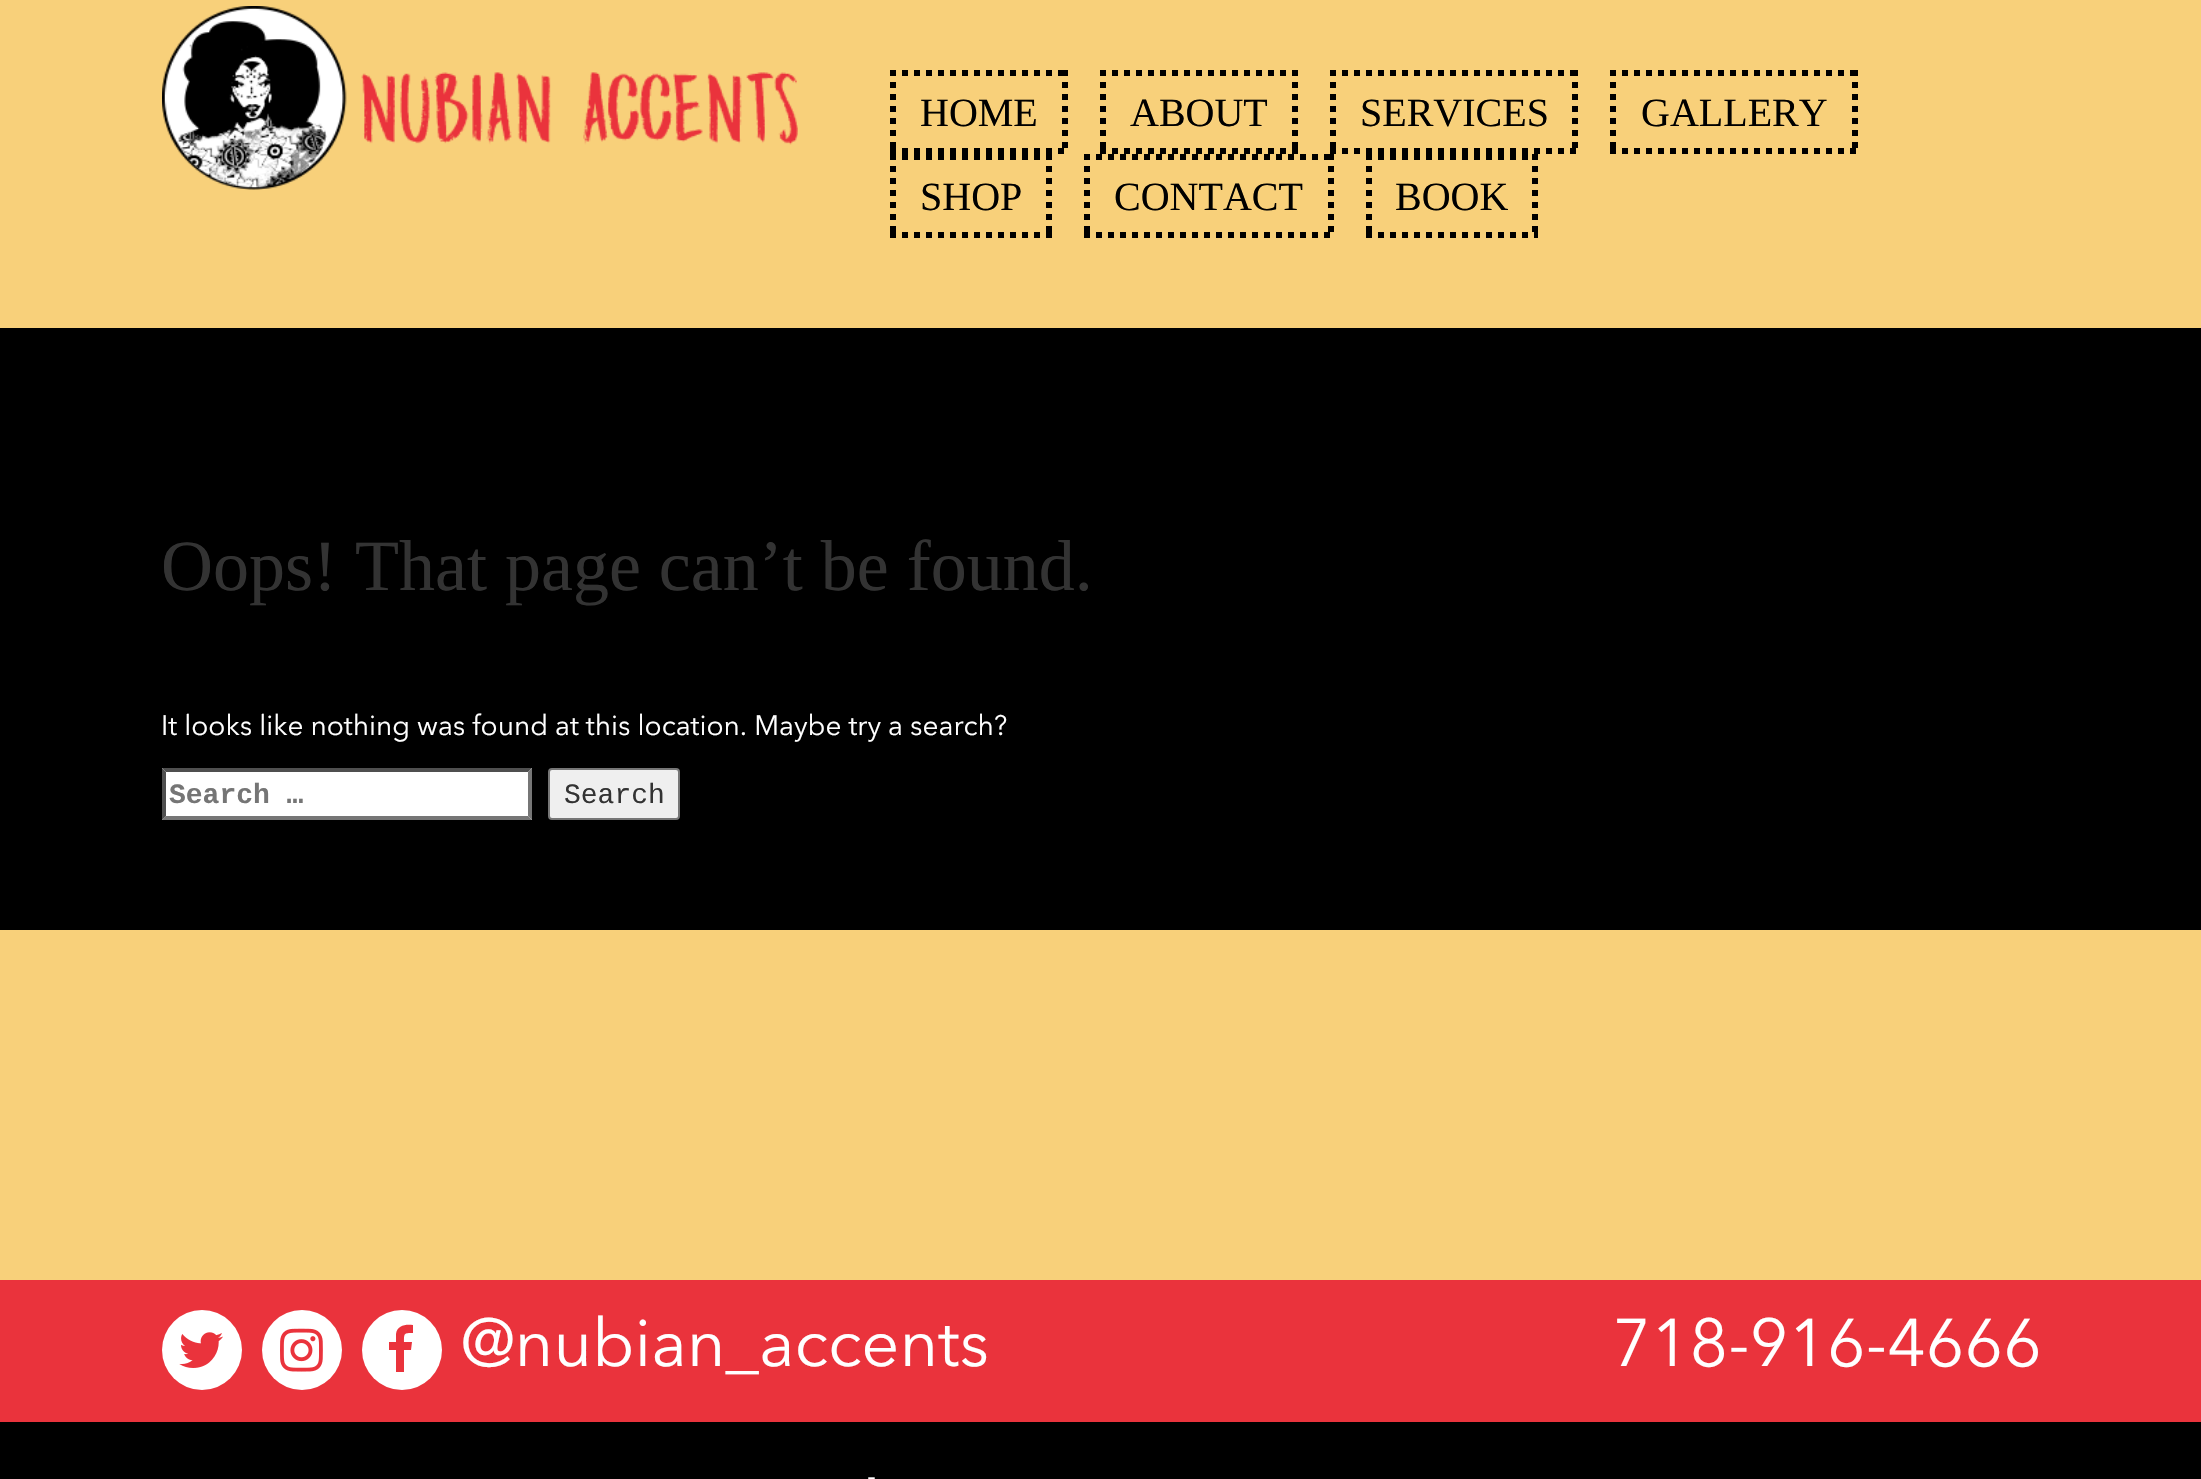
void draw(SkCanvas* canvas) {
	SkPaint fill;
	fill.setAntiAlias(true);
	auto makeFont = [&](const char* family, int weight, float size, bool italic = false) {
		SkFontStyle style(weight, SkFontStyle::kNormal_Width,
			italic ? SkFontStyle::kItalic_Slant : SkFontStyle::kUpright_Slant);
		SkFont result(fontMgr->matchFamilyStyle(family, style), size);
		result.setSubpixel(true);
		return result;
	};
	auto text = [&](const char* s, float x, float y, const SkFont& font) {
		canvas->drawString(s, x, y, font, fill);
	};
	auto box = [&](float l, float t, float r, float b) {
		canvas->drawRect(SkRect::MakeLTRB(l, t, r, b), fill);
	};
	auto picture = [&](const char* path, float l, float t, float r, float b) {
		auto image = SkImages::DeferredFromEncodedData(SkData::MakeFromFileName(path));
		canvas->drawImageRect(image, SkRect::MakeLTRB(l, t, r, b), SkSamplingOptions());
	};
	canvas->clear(0xFFF8D07A);
	picture("image0.png", 162, 6, 798, 190);
	fill.setStyle(SkPaint::kStroke_Style);
	fill.setStrokeWidth(6);
	fill.setColor(0xFF000000);
	fill.setPathEffect(SkDashPathEffect::Make({{6, 6}}, 0));
	canvas->drawPath(SkPathBuilder().moveTo(890, 73).lineTo(1068, 73).detach(), fill);
	fill.setPathEffect(nullptr);
	fill.setPathEffect(SkDashPathEffect::Make({{6, 6}}, 0));
	canvas->drawPath(SkPathBuilder().moveTo(1065, 70).lineTo(1065, 154).detach(), fill);
	fill.setPathEffect(nullptr);
	fill.setPathEffect(SkDashPathEffect::Make({{6, 6}}, 0));
	canvas->drawPath(SkPathBuilder().moveTo(890, 151).lineTo(1068, 151).detach(), fill);
	fill.setPathEffect(nullptr);
	fill.setPathEffect(SkDashPathEffect::Make({{6, 6}}, 0));
	canvas->drawPath(SkPathBuilder().moveTo(893, 70).lineTo(893, 154).detach(), fill);
	fill.setPathEffect(nullptr);
	fill.setPathEffect(SkDashPathEffect::Make({{6, 6}}, 0));
	canvas->drawPath(SkPathBuilder().moveTo(1100, 73).lineTo(1298, 73).detach(), fill);
	fill.setPathEffect(nullptr);
	fill.setPathEffect(SkDashPathEffect::Make({{6, 6}}, 0));
	canvas->drawPath(SkPathBuilder().moveTo(1295, 70).lineTo(1295, 154).detach(), fill);
	fill.setPathEffect(nullptr);
	fill.setPathEffect(SkDashPathEffect::Make({{6, 6}}, 0));
	canvas->drawPath(SkPathBuilder().moveTo(1100, 151).lineTo(1298, 151).detach(), fill);
	fill.setPathEffect(nullptr);
	fill.setPathEffect(SkDashPathEffect::Make({{6, 6}}, 0));
	canvas->drawPath(SkPathBuilder().moveTo(1103, 70).lineTo(1103, 154).detach(), fill);
	fill.setPathEffect(nullptr);
	fill.setPathEffect(SkDashPathEffect::Make({{6, 6}}, 0));
	canvas->drawPath(SkPathBuilder().moveTo(1330, 73).lineTo(1578, 73).detach(), fill);
	fill.setPathEffect(nullptr);
	fill.setPathEffect(SkDashPathEffect::Make({{6, 6}}, 0));
	canvas->drawPath(SkPathBuilder().moveTo(1575, 70).lineTo(1575, 154).detach(), fill);
	fill.setPathEffect(nullptr);
	fill.setPathEffect(SkDashPathEffect::Make({{6, 6}}, 0));
	canvas->drawPath(SkPathBuilder().moveTo(1330, 151).lineTo(1578, 151).detach(), fill);
	fill.setPathEffect(nullptr);
	fill.setPathEffect(SkDashPathEffect::Make({{6, 6}}, 0));
	canvas->drawPath(SkPathBuilder().moveTo(1333, 70).lineTo(1333, 154).detach(), fill);
	fill.setPathEffect(nullptr);
	fill.setPathEffect(SkDashPathEffect::Make({{6, 6}}, 0));
	canvas->drawPath(SkPathBuilder().moveTo(1610, 73).lineTo(1858, 73).detach(), fill);
	fill.setPathEffect(nullptr);
	fill.setPathEffect(SkDashPathEffect::Make({{6, 6}}, 0));
	canvas->drawPath(SkPathBuilder().moveTo(1855, 70).lineTo(1855, 154).detach(), fill);
	fill.setPathEffect(nullptr);
	fill.setPathEffect(SkDashPathEffect::Make({{6, 6}}, 0));
	canvas->drawPath(SkPathBuilder().moveTo(1610, 151).lineTo(1858, 151).detach(), fill);
	fill.setPathEffect(nullptr);
	fill.setPathEffect(SkDashPathEffect::Make({{6, 6}}, 0));
	canvas->drawPath(SkPathBuilder().moveTo(1613, 70).lineTo(1613, 154).detach(), fill);
	fill.setPathEffect(nullptr);
	fill.setPathEffect(SkDashPathEffect::Make({{6, 6}}, 0));
	canvas->drawPath(SkPathBuilder().moveTo(890, 157).lineTo(1052, 157).detach(), fill);
	fill.setPathEffect(nullptr);
	fill.setPathEffect(SkDashPathEffect::Make({{6, 6}}, 0));
	canvas->drawPath(SkPathBuilder().moveTo(1049, 154).lineTo(1049, 238).detach(), fill);
	fill.setPathEffect(nullptr);
	fill.setPathEffect(SkDashPathEffect::Make({{6, 6}}, 0));
	canvas->drawPath(SkPathBuilder().moveTo(890, 235).lineTo(1052, 235).detach(), fill);
	fill.setPathEffect(nullptr);
	fill.setPathEffect(SkDashPathEffect::Make({{6, 6}}, 0));
	canvas->drawPath(SkPathBuilder().moveTo(893, 154).lineTo(893, 238).detach(), fill);
	fill.setPathEffect(nullptr);
	fill.setPathEffect(SkDashPathEffect::Make({{6, 6}}, 0));
	canvas->drawPath(SkPathBuilder().moveTo(1084, 157).lineTo(1334, 157).detach(), fill);
	fill.setPathEffect(nullptr);
	fill.setPathEffect(SkDashPathEffect::Make({{6, 6}}, 0));
	canvas->drawPath(SkPathBuilder().moveTo(1331, 154).lineTo(1331, 238).detach(), fill);
	fill.setPathEffect(nullptr);
	fill.setPathEffect(SkDashPathEffect::Make({{6, 6}}, 0));
	canvas->drawPath(SkPathBuilder().moveTo(1084, 235).lineTo(1334, 235).detach(), fill);
	fill.setPathEffect(nullptr);
	fill.setPathEffect(SkDashPathEffect::Make({{6, 6}}, 0));
	canvas->drawPath(SkPathBuilder().moveTo(1087, 154).lineTo(1087, 238).detach(), fill);
	fill.setPathEffect(nullptr);
	fill.setPathEffect(SkDashPathEffect::Make({{6, 6}}, 0));
	canvas->drawPath(SkPathBuilder().moveTo(1366, 157).lineTo(1538, 157).detach(), fill);
	fill.setPathEffect(nullptr);
	fill.setPathEffect(SkDashPathEffect::Make({{6, 6}}, 0));
	canvas->drawPath(SkPathBuilder().moveTo(1535, 154).lineTo(1535, 238).detach(), fill);
	fill.setPathEffect(nullptr);
	fill.setPathEffect(SkDashPathEffect::Make({{6, 6}}, 0));
	canvas->drawPath(SkPathBuilder().moveTo(1366, 235).lineTo(1538, 235).detach(), fill);
	fill.setPathEffect(nullptr);
	fill.setPathEffect(SkDashPathEffect::Make({{6, 6}}, 0));
	canvas->drawPath(SkPathBuilder().moveTo(1369, 154).lineTo(1369, 238).detach(), fill);
	fill.setPathEffect(nullptr);
	fill.setStyle(SkPaint::kFill_Style);
	box(0, 328, 2201, 930);
	fill.setColor(0xFFFFFFFF);
	box(162, 768, 532, 820);
	fill.setColor(0xFF4F4F4F);
	canvas->drawPath(SkPathBuilder().moveTo(162, 768).lineTo(532, 768).lineTo(528, 772).lineTo(166, 772).close().detach(), fill);
	fill.setColor(0xFF767676);
	canvas->drawPath(SkPathBuilder().moveTo(532, 768).lineTo(532, 820).lineTo(528, 816).lineTo(528, 772).close().detach(), fill);
	canvas->drawPath(SkPathBuilder().moveTo(532, 820).lineTo(162, 820).lineTo(166, 816).lineTo(528, 816).close().detach(), fill);
	fill.setColor(0xFF4F4F4F);
	canvas->drawPath(SkPathBuilder().moveTo(162, 820).lineTo(162, 768).lineTo(166, 772).lineTo(166, 816).close().detach(), fill);
	fill.setColor(0xFFEFEFEF);
	canvas->drawRoundRect(SkRect::MakeLTRB(549, 769, 679, 819), 3, 3, fill);
	fill.setStyle(SkPaint::kStroke_Style);
	fill.setStrokeWidth(2);
	fill.setColor(0xFF767676);
	canvas->drawRoundRect(SkRect::MakeLTRB(549, 769, 679, 819), 3, 3, fill);
	fill.setStyle(SkPaint::kFill_Style);
	fill.setColor(0xFFEA333C);
	box(0, 1280, 2201, 1422);
	fill.setColor(0xFFFFFFFF);
	canvas->drawCircle(202, 1350, 40, fill);
	picture("image1.png", 179, 1332, 223, 1368);
	canvas->drawCircle(302, 1350, 40, fill);
	picture("image2.png", 280, 1328, 323, 1372);
	canvas->drawCircle(402, 1350, 40, fill);
	fill.setColor(0xFFEA333C);
	canvas->drawPath(SkPathBuilder().moveTo(413, 1325).lineTo(413, 1333).cubicTo(404, 1333, 404, 1333, 404, 1342).lineTo(412, 1342).lineTo(411, 1350).lineTo(404, 1350).lineTo(404, 1372).lineTo(396, 1372).lineTo(396, 1350).lineTo(389, 1350).lineTo(389, 1342).lineTo(396, 1342).lineTo(396, 1334).cubicTo(397, 1325, 406, 1324, 413, 1325).close().detach(), fill);
	fill.setColor(0xFF000000);
	box(0, 1422, 2201, 1479);
	auto font1 = makeFont("Liberation Serif", 400, 40);
	text("HOME", 920, 126, font1);
	text("ABOUT", 1130, 126, font1);
	text("SERVICES", 1360, 126, font1);
	text("GALLERY", 1641, 126, font1);
	text("SHOP", 920, 210, font1);
	text("CONTACT", 1114, 210, font1);
	text("BOOK", 1395, 210, font1);
	auto font2 = makeFont("Liberation Serif", 400, 72);
	fill.setColor(0xFF333333);
	text("Oops! That page can’t be found.", 161, 590, font2);
	auto font3 = makeFont("Avenir Next", 400, 28);
	fill.setColor(0xFFFFFFFF);
	text("It looks like nothing was found at this location. Maybe try a search?", 161, 735, font3);
	auto font4 = makeFont("Liberation Mono", 700, 28);
	fill.setColor(0xFF757575);
	text("Search …", 169, 803, font4);
	auto font5 = makeFont("Liberation Mono", 400, 28);
	fill.setColor(0xFF333333);
	text("Search", 564, 803, font5);
	auto font6 = makeFont("Avenir Next", 400, 66.75f);
	fill.setColor(0xFFFFFFFF);
	text("@nubian_accents", 461, 1366, font6);
	text("718-916-4666", 1612, 1366, font6);
	text("-", 867, 1485, font3);
}
